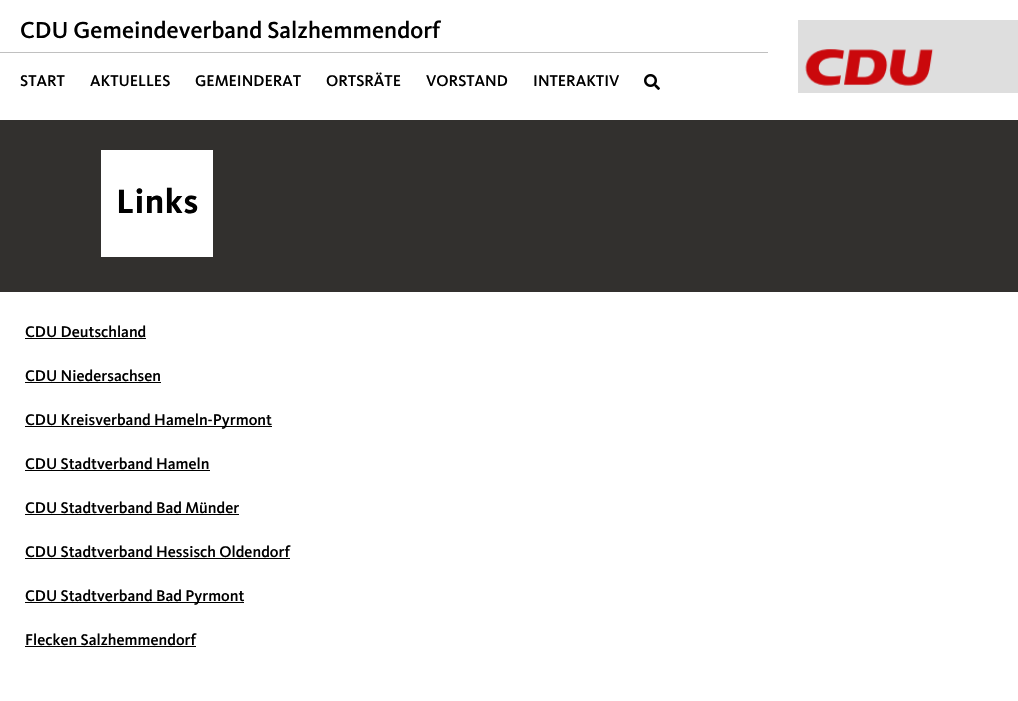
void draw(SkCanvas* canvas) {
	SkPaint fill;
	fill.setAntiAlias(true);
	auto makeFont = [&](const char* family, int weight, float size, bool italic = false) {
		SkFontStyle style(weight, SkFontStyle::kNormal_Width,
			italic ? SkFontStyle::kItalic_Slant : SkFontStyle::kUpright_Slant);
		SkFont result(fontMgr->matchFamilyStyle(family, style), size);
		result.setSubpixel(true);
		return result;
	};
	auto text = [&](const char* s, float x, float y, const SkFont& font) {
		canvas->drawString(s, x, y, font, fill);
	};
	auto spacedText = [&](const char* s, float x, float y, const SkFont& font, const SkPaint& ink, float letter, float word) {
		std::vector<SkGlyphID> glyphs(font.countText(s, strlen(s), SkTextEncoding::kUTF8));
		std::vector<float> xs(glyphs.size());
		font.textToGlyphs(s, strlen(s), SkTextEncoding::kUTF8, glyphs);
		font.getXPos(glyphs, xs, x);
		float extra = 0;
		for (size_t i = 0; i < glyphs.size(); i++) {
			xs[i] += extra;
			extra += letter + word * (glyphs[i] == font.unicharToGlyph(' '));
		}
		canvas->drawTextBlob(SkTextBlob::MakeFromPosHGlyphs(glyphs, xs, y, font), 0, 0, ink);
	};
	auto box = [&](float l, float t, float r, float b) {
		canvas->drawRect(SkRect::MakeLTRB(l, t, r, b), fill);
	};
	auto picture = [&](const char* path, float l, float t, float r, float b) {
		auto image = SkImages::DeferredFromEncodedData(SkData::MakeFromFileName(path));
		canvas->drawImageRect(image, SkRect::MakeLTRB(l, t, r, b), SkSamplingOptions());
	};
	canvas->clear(0xFFFFFFFF);
	fill.setColor(0xFFC0C0C0);
	box(0, 52, 768, 53);
	picture("image0.png", 798, 20, 1018, 93);
	picture("image1.png", 644, 74, 660, 90);
	fill.setColor(0xFF32302E);
	box(0, 120, 1018, 292);
	fill.setColor(0xFFFFFFFF);
	box(101, 150, 213, 257);
	fill.setColor(0xFF000000);
	box(25, 338, 146, 339);
	box(25, 382, 161, 383);
	box(25, 426, 272, 427);
	box(25, 470, 210, 471);
	box(25, 514, 239, 515);
	box(25, 558, 290, 559);
	box(25, 602, 244, 603);
	box(25, 646, 196, 647);
	auto font1 = makeFont("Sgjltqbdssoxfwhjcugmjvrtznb", 500, 24);
	text("CDU Gemeindeverband Salzhemmendorf", 20, 38, font1);
	auto font2 = makeFont("Sgjltqbdssoxfwhjcugmjvrtznb", 500, 16);
	text("START", 20, 86, font2);
	text("AKTUELLES", 90, 86, font2);
	text("GEMEINDERAT", 195, 86, font2);
	text("ORTSRÄTE", 326, 86, font2);
	text("VORSTAND", 426, 86, font2);
	text("INTERAKTIV", 533, 86, font2);
	auto font3 = makeFont("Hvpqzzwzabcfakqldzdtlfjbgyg", 700, 35);
	spacedText("Links", 116, 213, font3, fill, 0.5f, 0);
	text("CDU Deutschland", 25, 337, font2);
	text("CDU Niedersachsen", 25, 381, font2);
	text("CDU Kreisverband Hameln-Pyrmont", 25, 425, font2);
	text("CDU Stadtverband Hameln", 25, 469, font2);
	text("CDU Stadtverband Bad Münder", 25, 513, font2);
	text("CDU Stadtverband Hessisch Oldendorf", 25, 557, font2);
	text("CDU Stadtverband Bad Pyrmont", 25, 601, font2);
	text("Flecken Salzhemmendorf", 25, 645, font2);
}
